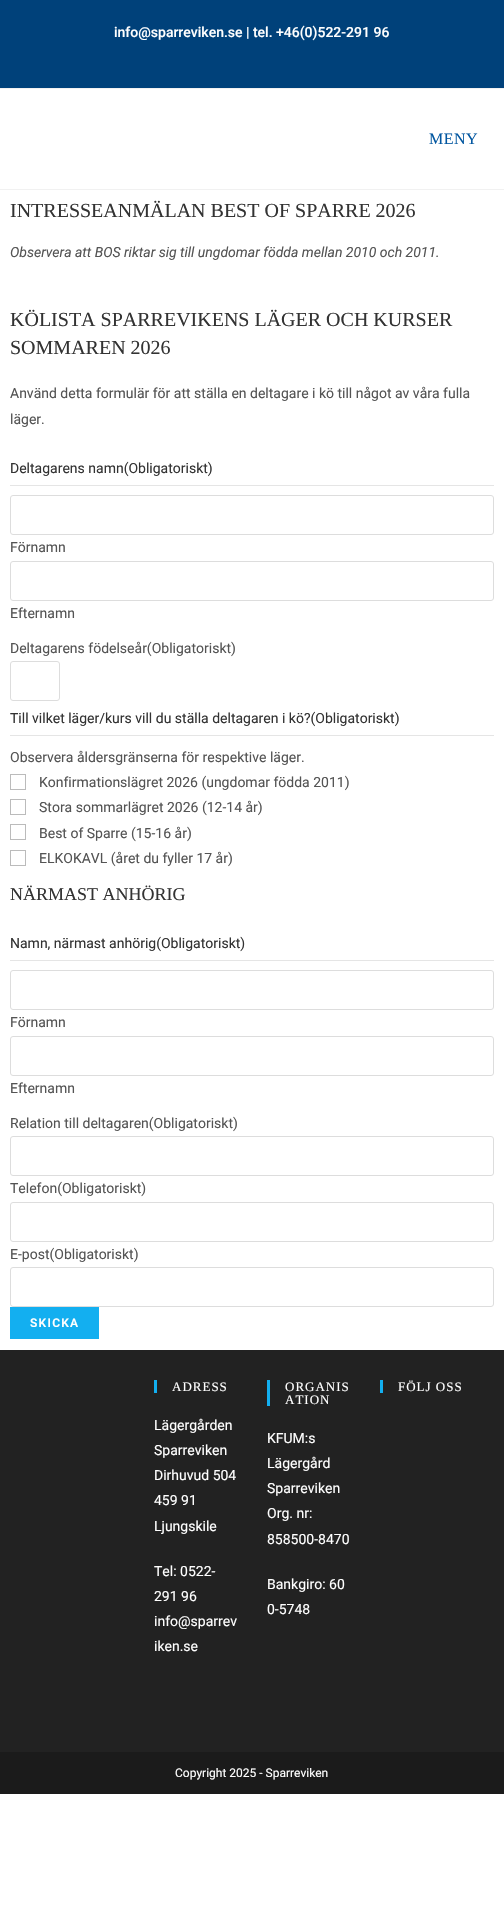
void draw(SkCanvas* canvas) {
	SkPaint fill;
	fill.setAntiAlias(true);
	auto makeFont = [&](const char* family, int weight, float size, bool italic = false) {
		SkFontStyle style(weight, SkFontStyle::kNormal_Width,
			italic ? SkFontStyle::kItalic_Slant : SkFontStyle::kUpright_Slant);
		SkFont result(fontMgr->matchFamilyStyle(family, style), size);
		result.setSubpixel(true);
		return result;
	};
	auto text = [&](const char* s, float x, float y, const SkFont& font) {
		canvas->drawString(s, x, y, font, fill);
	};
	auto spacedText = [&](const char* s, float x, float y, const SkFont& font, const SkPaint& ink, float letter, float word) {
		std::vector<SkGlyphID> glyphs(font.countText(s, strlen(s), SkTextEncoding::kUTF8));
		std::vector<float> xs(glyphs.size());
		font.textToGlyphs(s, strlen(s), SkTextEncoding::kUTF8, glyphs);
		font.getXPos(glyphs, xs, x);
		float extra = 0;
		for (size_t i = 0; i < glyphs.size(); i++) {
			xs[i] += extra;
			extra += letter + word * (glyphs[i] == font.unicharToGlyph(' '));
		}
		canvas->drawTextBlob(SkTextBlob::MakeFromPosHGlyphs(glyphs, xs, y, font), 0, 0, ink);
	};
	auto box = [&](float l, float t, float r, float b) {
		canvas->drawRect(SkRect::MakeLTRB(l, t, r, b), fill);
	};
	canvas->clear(0xFFFFFFFF);
	fill.setColor(0xFF00417A);
	box(0, 0, 504, 88);
	fill.setColor(0xFFF1F1F1);
	box(0, 88, 504, 89);
	box(0, 189, 504, 190);
	fill.setColor(0xFFE5E5E5);
	box(10, 485, 494, 486);
	fill.setStyle(SkPaint::kStroke_Style);
	fill.setStrokeWidth(1);
	fill.setColor(0xFFDDDDDD);
	canvas->drawRoundRect(SkRect::MakeLTRB(10.5f, 495.5f, 493.5f, 534.5f), 2.5f, 2.5f, fill);
	canvas->drawRoundRect(SkRect::MakeLTRB(10.5f, 561.5f, 493.5f, 600.5f), 2.5f, 2.5f, fill);
	canvas->drawRoundRect(SkRect::MakeLTRB(10.5f, 661.5f, 59.5f, 700.5f), 2.5f, 2.5f, fill);
	fill.setStyle(SkPaint::kFill_Style);
	fill.setColor(0xFFE5E5E5);
	box(10, 735, 494, 736);
	fill.setStyle(SkPaint::kStroke_Style);
	fill.setColor(0xFFBBBBBB);
	canvas->drawRect(SkRect::MakeLTRB(10.5f, 774.5f, 25.5f, 789.5f), fill);
	canvas->drawRect(SkRect::MakeLTRB(10.5f, 799.5f, 25.5f, 814.5f), fill);
	canvas->drawRect(SkRect::MakeLTRB(10.5f, 824.5f, 25.5f, 839.5f), fill);
	canvas->drawRect(SkRect::MakeLTRB(10.5f, 850.5f, 25.5f, 865.5f), fill);
	fill.setStyle(SkPaint::kFill_Style);
	fill.setColor(0xFFE5E5E5);
	box(10, 960, 494, 961);
	fill.setStyle(SkPaint::kStroke_Style);
	fill.setColor(0xFFDDDDDD);
	canvas->drawRoundRect(SkRect::MakeLTRB(10.5f, 970.5f, 493.5f, 1009.5f), 2.5f, 2.5f, fill);
	canvas->drawRoundRect(SkRect::MakeLTRB(10.5f, 1036.5f, 493.5f, 1075.5f), 2.5f, 2.5f, fill);
	canvas->drawRoundRect(SkRect::MakeLTRB(10.5f, 1136.5f, 493.5f, 1175.5f), 2.5f, 2.5f, fill);
	canvas->drawRoundRect(SkRect::MakeLTRB(10.5f, 1202.5f, 493.5f, 1241.5f), 2.5f, 2.5f, fill);
	canvas->drawRoundRect(SkRect::MakeLTRB(10.5f, 1267.5f, 493.5f, 1306.5f), 2.5f, 2.5f, fill);
	fill.setStyle(SkPaint::kFill_Style);
	fill.setColor(0xFF13AFF0);
	box(10, 1307, 99, 1339);
	fill.setColor(0xFF222222);
	box(0, 1350, 504, 1752);
	fill.setColor(0xFF13AFF0);
	box(154, 1380, 157, 1393);
	box(267, 1380, 270, 1406);
	box(380, 1380, 383, 1393);
	fill.setColor(0xFF1B1B1B);
	box(0, 1752, 504, 1794);
	auto font1 = makeFont("Roboto", 500, 14);
	fill.setColor(0xFFFFFFFF);
	text("info@sparreviken.se | tel. +46(0)522-291 96", 114, 37, font1);
	auto font2 = makeFont("Liberation Serif", 400, 16);
	fill.setColor(0xFF0156A0);
	spacedText("MENY", 429, 144, font2, fill, 0.5f, 0);
	auto font3 = makeFont("Liberation Serif", 400, 20);
	fill.setColor(0xFF333333);
	text("INTRESSEANMÄLAN BEST OF SPARRE 2026", 10, 217, font3);
	auto font4 = makeFont("Roboto", 400, 14, true);
	fill.setColor(0xFF545454);
	text("Observera att BOS riktar sig till ungdomar födda mellan 2010 och 2011.", 10, 257, font4);
	fill.setColor(0xFF333333);
	text("KÖLISTA SPARREVIKENS LÄGER OCH KURSER", 10, 326, font3);
	text("SOMMAREN 2026", 10, 354, font3);
	auto font5 = makeFont("Roboto", 400, 14);
	fill.setColor(0xFF545454);
	text("Använd detta formulär för att ställa en deltagare i kö till något av våra fulla", 10, 398, font5);
	text("läger.", 10, 424, font5);
	fill.setColor(0xFF333333);
	text("Deltagarens namn(Obligatoriskt)", 10, 473, font5);
	fill.setColor(0xFF545454);
	text("Förnamn", 10, 552, font5);
	text("Efternamn", 10, 618, font5);
	text("Deltagarens födelseår(Obligatoriskt)", 10, 653, font5);
	fill.setColor(0xFF333333);
	text("Till vilket läger/kurs vill du ställa deltagaren i kö?(Obligatoriskt)", 10, 723, font5);
	fill.setColor(0xFF545454);
	text("Observera åldersgränserna för respektive läger.", 10, 762, font5);
	text("Konfirmationslägret 2026 (ungdomar födda 2011)", 39, 787, font5);
	text("Stora sommarlägret 2026 (12-14 år)", 39, 812, font5);
	text("Best of Sparre (15-16 år)", 39, 838, font5);
	text("ELKOKAVL (året du fyller 17 år)", 39, 863, font5);
	auto font6 = makeFont("Liberation Serif", 400, 18);
	fill.setColor(0xFF333333);
	text("NÄRMAST ANHÖRIG", 10, 900, font6);
	text("Namn, närmast anhörig(Obligatoriskt)", 10, 948, font5);
	fill.setColor(0xFF545454);
	text("Förnamn", 10, 1027, font5);
	text("Efternamn", 10, 1093, font5);
	text("Relation till deltagaren(Obligatoriskt)", 10, 1128, font5);
	text("Telefon(Obligatoriskt)", 10, 1193, font5);
	text("E-post(Obligatoriskt)", 10, 1259, font5);
	auto font7 = makeFont("Roboto", 600, 12);
	fill.setColor(0xFFFFFFFF);
	spacedText("SKICKA", 30, 1327, font7, fill, 1.25f, 0);
	auto font8 = makeFont("Liberation Serif", 400, 13);
	spacedText("ADRESS", 172, 1391, font8, fill, 1, 0);
	text("Lägergården", 154, 1430, font5);
	text("Sparreviken", 154, 1455, font5);
	text("Dirhuvud 504", 154, 1480, font5);
	text("459 91", 154, 1505, font5);
	text("Ljungskile", 154, 1531, font5);
	text("Tel: 0522-", 154, 1576, font5);
	text("291 96", 154, 1601, font5);
	text("info@sparrev", 154, 1626, font5);
	text("iken.se", 154, 1651, font5);
	spacedText("ORGANIS", 285, 1391, font8, fill, 1, 0);
	spacedText("ATION", 285, 1404, font8, fill, 1, 0);
	text("KFUM:s", 267, 1443, font5);
	text("Lägergård", 267, 1468, font5);
	text("Sparreviken", 267, 1493, font5);
	text("Org. nr:", 267, 1518, font5);
	text("858500-8470", 267, 1544, font5);
	text("Bankgiro: 60", 267, 1589, font5);
	text("0-5748", 267, 1614, font5);
	spacedText("FÖLJ OSS", 398, 1391, font8, fill, 1, 0);
	auto font9 = makeFont("Roboto", 400, 12);
	text("Copyright 2025 - Sparreviken", 175, 1777, font9);
}
